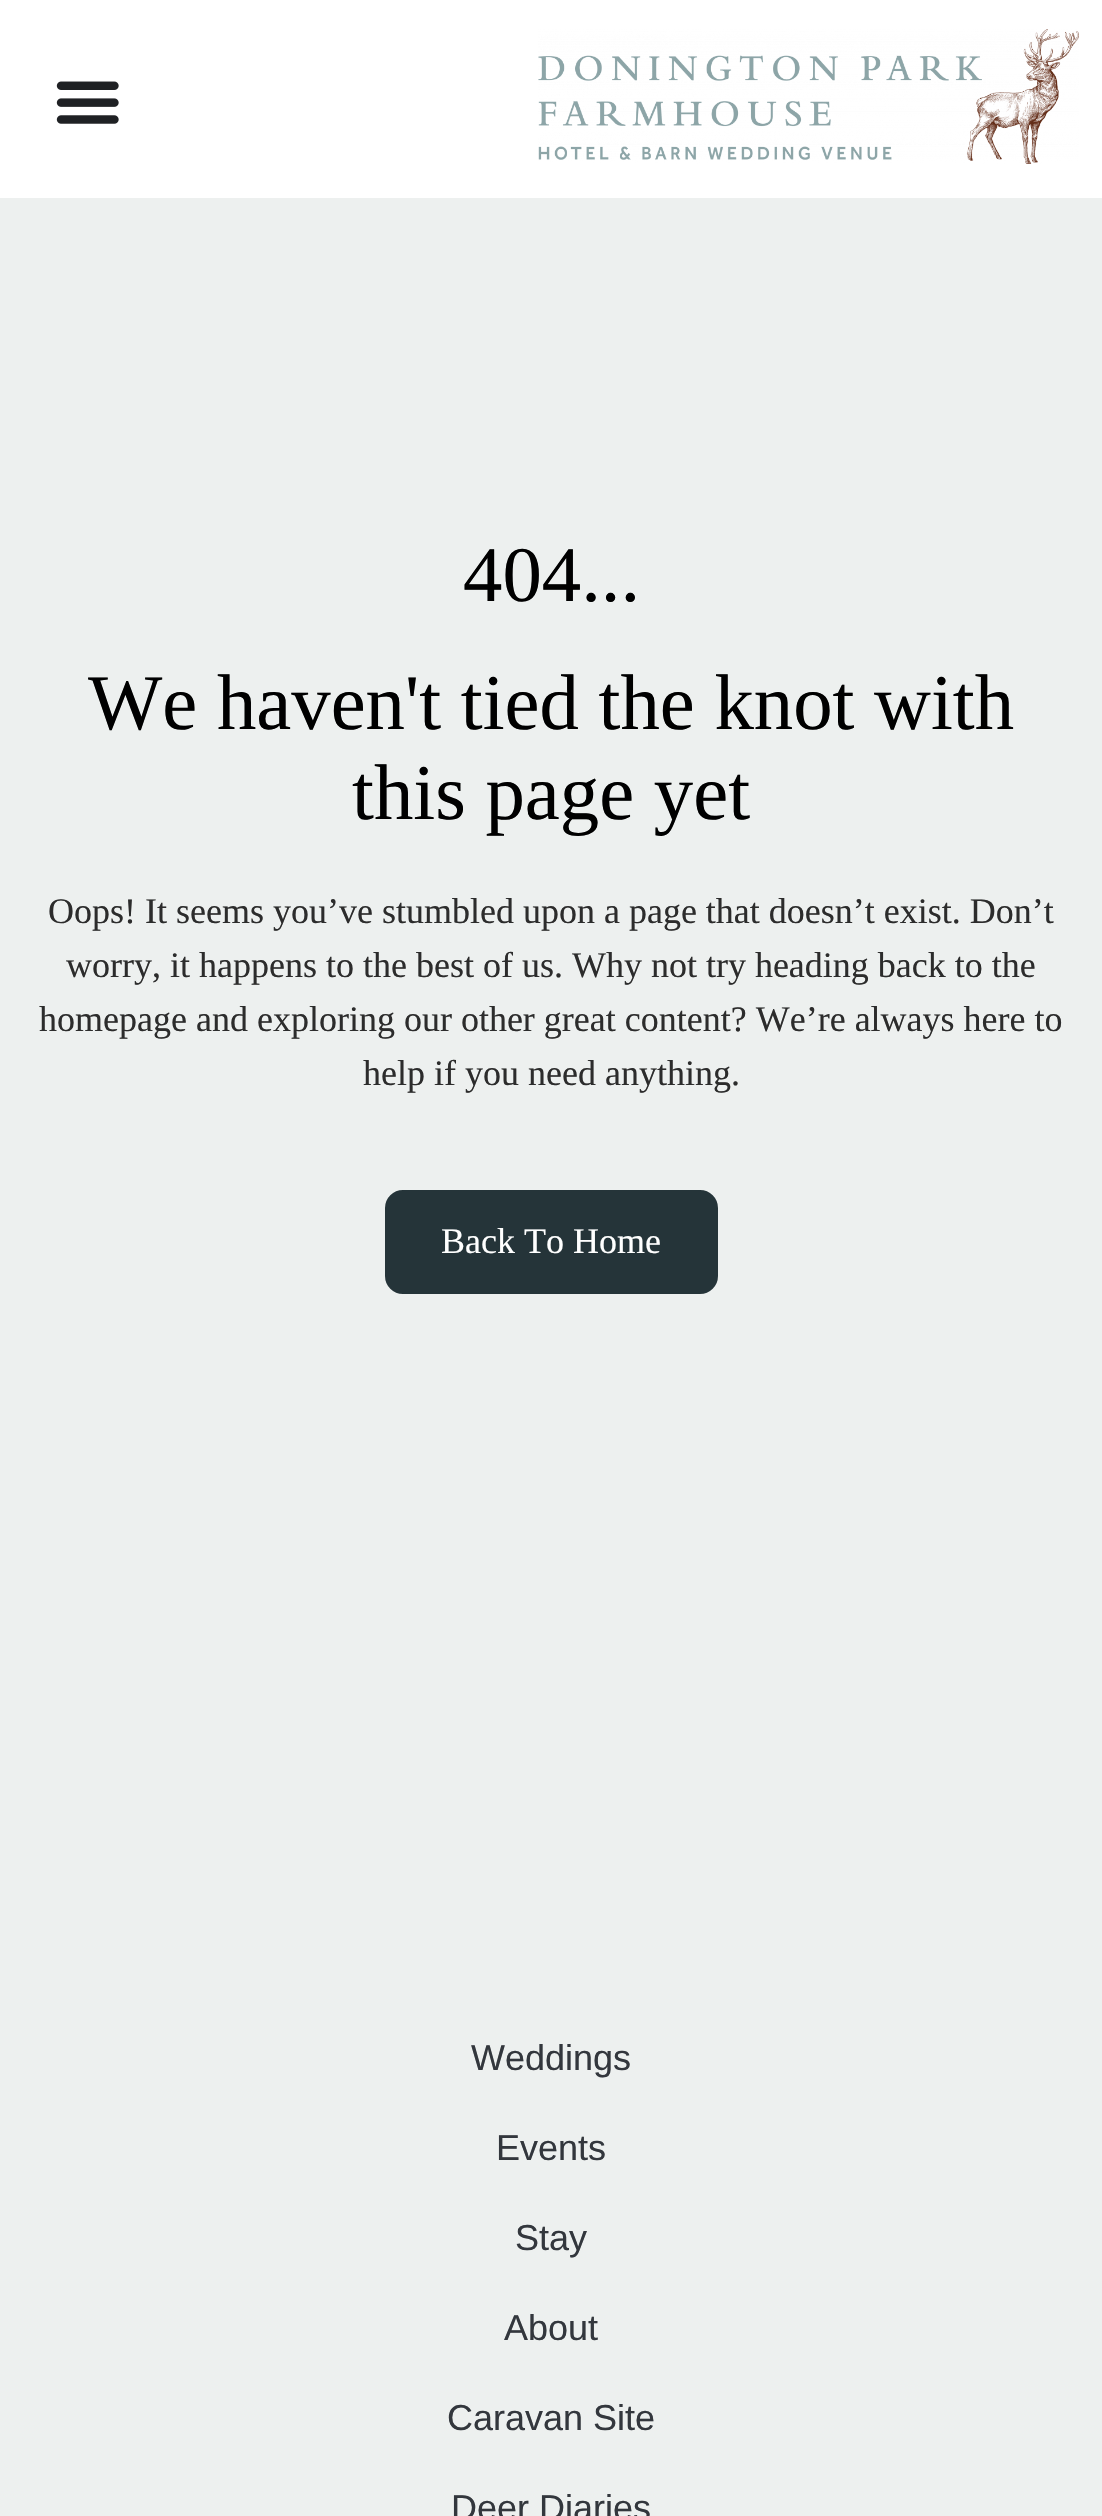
void draw(SkCanvas* canvas) {
	SkPaint fill;
	fill.setAntiAlias(true);
	auto makeFont = [&](const char* family, int weight, float size, bool italic = false) {
		SkFontStyle style(weight, SkFontStyle::kNormal_Width,
			italic ? SkFontStyle::kItalic_Slant : SkFontStyle::kUpright_Slant);
		SkFont result(fontMgr->matchFamilyStyle(family, style), size);
		result.setSubpixel(true);
		return result;
	};
	auto text = [&](const char* s, float x, float y, const SkFont& font) {
		canvas->drawString(s, x, y, font, fill);
	};
	auto box = [&](float l, float t, float r, float b) {
		canvas->drawRect(SkRect::MakeLTRB(l, t, r, b), fill);
	};
	auto picture = [&](const char* path, float l, float t, float r, float b) {
		auto image = SkImages::DeferredFromEncodedData(SkData::MakeFromFileName(path));
		canvas->drawImageRect(image, SkRect::MakeLTRB(l, t, r, b), SkSamplingOptions());
	};
	canvas->clear(0xFFFFFFFF);
	picture("image0.png", 56, 81, 119, 124);
	picture("image1.png", 538, 29, 1079, 164);
	fill.setColor(0xFFEDF0EF);
	box(0, 198, 1102, 2516);
	fill.setColor(0xFF253439);
	canvas->drawRoundRect(SkRect::MakeLTRB(386, 1191, 717, 1293), 17, 17, fill);
	fill.setStyle(SkPaint::kStroke_Style);
	fill.setStrokeWidth(2);
	canvas->drawRoundRect(SkRect::MakeLTRB(386, 1191, 717, 1293), 17, 17, fill);
	auto font1 = makeFont("Liberation Serif", 400, 78.75f);
	fill.setStyle(SkPaint::kFill_Style);
	fill.setColor(0xFF000000);
	text("404...", 463, 601, font1);
	text("We haven't tied the knot with", 88, 729, font1);
	text("this page yet", 352, 819, font1);
	auto font2 = makeFont("Liberation Serif", 400, 36);
	fill.setColor(0xFF2C2C2C);
	text("Oops! It seems you’ve stumbled upon a page that doesn’t exist. Don’t", 48, 923, font2);
	text("worry, it happens to the best of us. Why not try heading back to the", 66, 977, font2);
	text("homepage and exploring our other great content? We’re always here to", 39, 1031, font2);
	text("help if you need anything.", 363, 1085, font2);
	fill.setColor(0xFFFFFFFF);
	text("Back To Home", 441, 1253, font2);
	auto font3 = makeFont("Liberation Sans", 400, 36);
	fill.setColor(0xFF33373D);
	text("Weddings", 471, 2070, font3);
	text("Events", 496, 2160, font3);
	text("Stay", 515, 2250, font3);
	text("About", 504, 2340, font3);
	text("Caravan Site", 447, 2430, font3);
	text("Deer Diaries", 451, 2520, font3);
}
